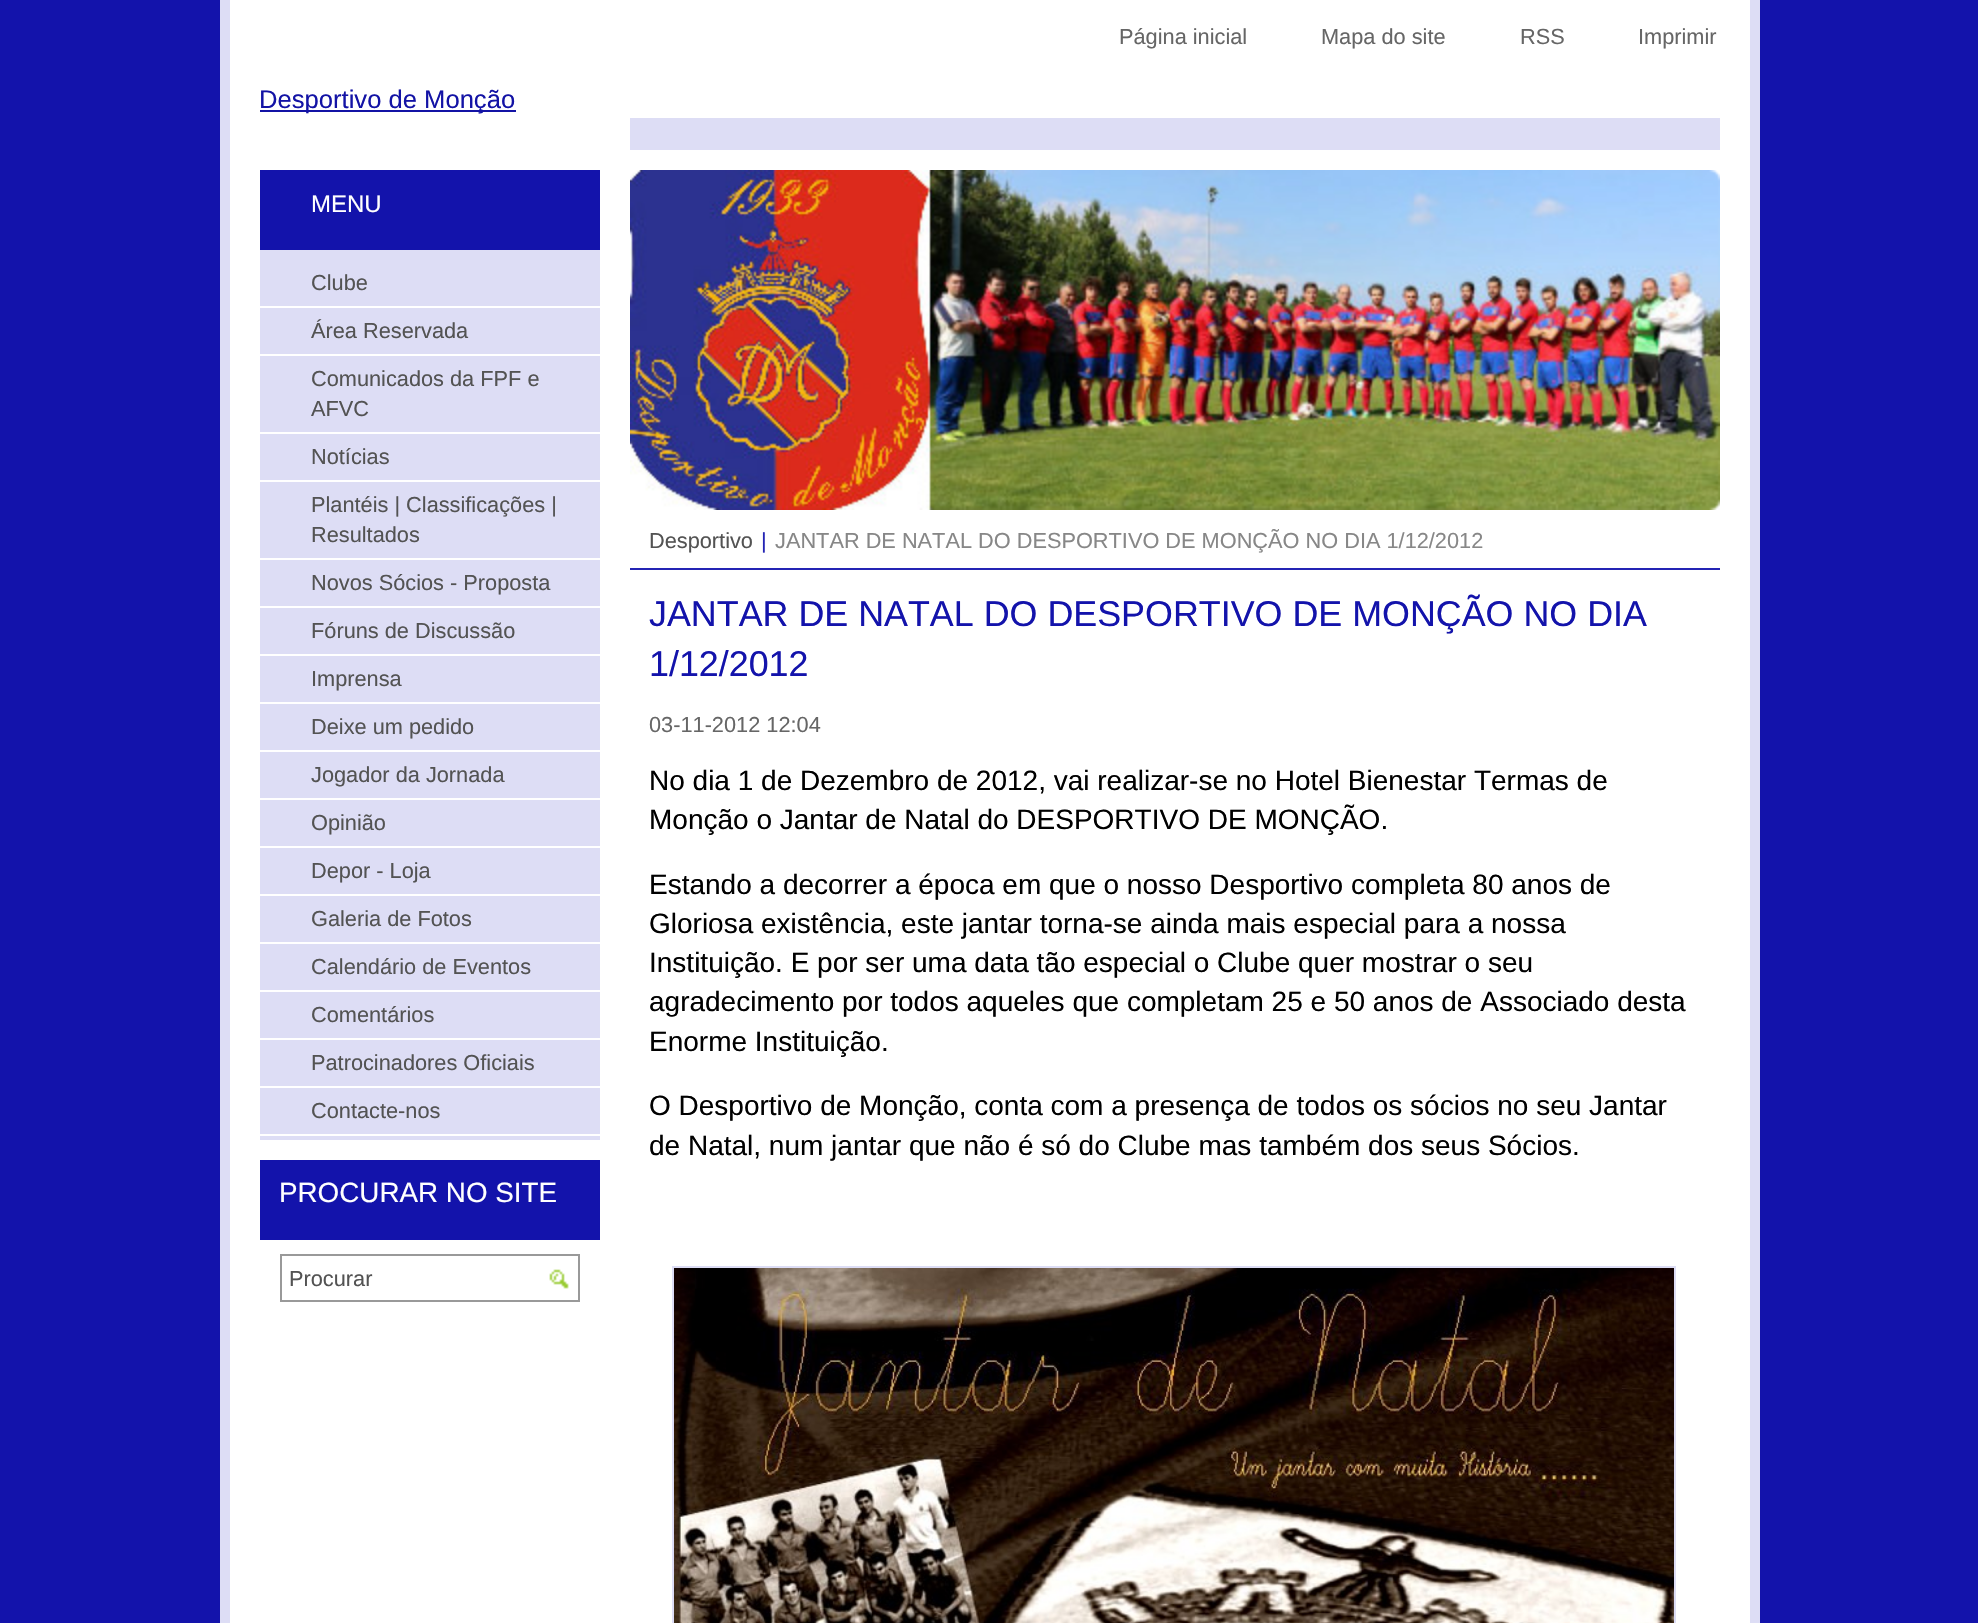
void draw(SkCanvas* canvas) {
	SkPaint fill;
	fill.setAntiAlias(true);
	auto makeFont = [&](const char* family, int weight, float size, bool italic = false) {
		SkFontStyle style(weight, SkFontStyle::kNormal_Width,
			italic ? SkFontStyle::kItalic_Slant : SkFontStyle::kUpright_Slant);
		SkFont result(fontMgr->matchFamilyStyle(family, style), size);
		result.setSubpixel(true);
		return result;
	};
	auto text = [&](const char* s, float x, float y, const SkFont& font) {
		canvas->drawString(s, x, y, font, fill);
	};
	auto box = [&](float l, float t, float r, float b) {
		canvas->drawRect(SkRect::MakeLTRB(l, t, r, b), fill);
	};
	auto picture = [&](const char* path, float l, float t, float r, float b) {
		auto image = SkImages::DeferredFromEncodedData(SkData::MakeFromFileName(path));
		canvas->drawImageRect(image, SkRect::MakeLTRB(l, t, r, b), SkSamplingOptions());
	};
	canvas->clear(0xFF1313AB);
	fill.setColor(0xFFFFFFFF);
	box(230, 0, 1750, 1623);
	fill.setColor(0xFFDDDDF5);
	box(1750, 0, 1760, 1623);
	box(220, 0, 230, 1623);
	fill.setColor(0xFF1313A5);
	box(260, 110, 516, 112);
	fill.setColor(0xFFDDDDF5);
	box(630, 118, 1720, 150);
	box(260, 1136, 600, 1140);
	box(260, 250, 600, 1134);
	fill.setColor(0xFF1313AB);
	box(260, 170, 600, 250);
	fill.setColor(0xFFFFFFFF);
	box(260, 306, 600, 308);
	box(260, 354, 600, 356);
	box(260, 432, 600, 434);
	box(260, 480, 600, 482);
	box(260, 558, 600, 560);
	box(260, 606, 600, 608);
	box(260, 654, 600, 656);
	box(260, 702, 600, 704);
	box(260, 750, 600, 752);
	box(260, 798, 600, 800);
	box(260, 846, 600, 848);
	box(260, 894, 600, 896);
	box(260, 942, 600, 944);
	box(260, 990, 600, 992);
	box(260, 1038, 600, 1040);
	box(260, 1086, 600, 1088);
	fill.setColor(0xFF1313AB);
	box(260, 1160, 600, 1240);
	fill.setStyle(SkPaint::kStroke_Style);
	fill.setStrokeWidth(2);
	fill.setColor(0xFF999999);
	canvas->drawRect(SkRect::MakeLTRB(281, 1255, 579, 1301), fill);
	picture("image0.png", 549, 1269, 569, 1289);
	picture("image1.png", 630, 170, 1720, 510);
	picture("image2.png", 630, 170, 1720, 510);
	fill.setStyle(SkPaint::kFill_Style);
	fill.setColor(0xFF2424B4);
	box(630, 568, 1720, 570);
	fill.setStyle(SkPaint::kStroke_Style);
	fill.setColor(0xFFDDDDF5);
	canvas->drawRect(SkRect::MakeLTRB(673, 1267, 1675, 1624), fill);
	picture("image3.png", 674, 1268, 1674, 1623);
	auto font1 = makeFont("Liberation Sans", 400, 21.75f);
	fill.setStyle(SkPaint::kFill_Style);
	fill.setColor(0xFF666666);
	text("Página inicial", 1119, 44, font1);
	text("Mapa do site", 1321, 44, font1);
	text("RSS", 1520, 44, font1);
	text("Imprimir", 1638, 44, font1);
	auto font2 = makeFont("Liberation Sans", 400, 25.6f);
	fill.setColor(0xFF1313A5);
	text("Desportivo de Monção", 259, 108, font2);
	auto font3 = makeFont("Liberation Sans", 400, 24);
	fill.setColor(0xFFFFFFFF);
	text("MENU", 311, 212, font3);
	fill.setColor(0xFF535353);
	text("Clube", 311, 290, font1);
	text("Área Reservada", 311, 338, font1);
	text("Comunicados da FPF e", 311, 386, font1);
	text("AFVC", 311, 416, font1);
	text("Notícias", 311, 464, font1);
	text("Plantéis | Classificações |", 311, 512, font1);
	text("Resultados", 311, 542, font1);
	text("Novos Sócios - Proposta", 311, 590, font1);
	text("Fóruns de Discussão", 311, 638, font1);
	text("Imprensa", 311, 686, font1);
	text("Deixe um pedido", 311, 734, font1);
	text("Jogador da Jornada", 311, 782, font1);
	text("Opinião", 311, 830, font1);
	text("Depor - Loja", 311, 878, font1);
	text("Galeria de Fotos", 311, 926, font1);
	text("Calendário de Eventos", 311, 974, font1);
	text("Comentários", 311, 1022, font1);
	text("Patrocinadores Oficiais", 311, 1070, font1);
	text("Contacte-nos", 311, 1118, font1);
	auto font4 = makeFont("Liberation Sans", 400, 27.8f);
	fill.setColor(0xFFFFFFFF);
	text("PROCURAR NO SITE", 279, 1202, font4);
	fill.setColor(0xFF535353);
	text("Procurar", 289, 1286, font1);
	text("Desportivo", 649, 548, font1);
	fill.setColor(0xFF2424B4);
	text("|", 761, 548, font1);
	fill.setColor(0xFF878787);
	text("JANTAR DE NATAL DO DESPORTIVO DE MONÇÃO NO DIA 1/12/2012", 775, 548, font1);
	auto font5 = makeFont("Liberation Sans", 400, 35.85f);
	fill.setColor(0xFF1313AB);
	text("JANTAR DE NATAL DO DESPORTIVO DE MONÇÃO NO DIA", 649, 626, font5);
	text("1/12/2012", 649, 676, font5);
	fill.setColor(0xFF666666);
	text("03-11-2012 12:04", 649, 732, font1);
	auto font6 = makeFont("Liberation Sans", 400, 28);
	fill.setColor(0xFF000000);
	text("No dia 1 de Dezembro de 2012, vai realizar-se no Hotel Bienestar Termas de", 649, 790, font6);
	text("Monção o Jantar de Natal do DESPORTIVO DE MONÇÃO.", 649, 829, font6);
	text("Estando a decorrer a época em que o nosso Desportivo completa 80 anos de", 649, 894, font6);
	text("Gloriosa existência, este jantar torna-se ainda mais especial para a nossa", 649, 933, font6);
	text("Instituição. E por ser uma data tão especial o Clube quer mostrar o seu", 649, 972, font6);
	text("agradecimento por todos aqueles que completam 25 e 50 anos de Associado desta", 649, 1011, font6);
	text("Enorme Instituição.", 649, 1051, font6);
	text("O Desportivo de Monção, conta com a presença de todos os sócios no seu Jantar", 649, 1115, font6);
	text("de Natal, num jantar que não é só do Clube mas também dos seus Sócios.", 649, 1155, font6);
}
